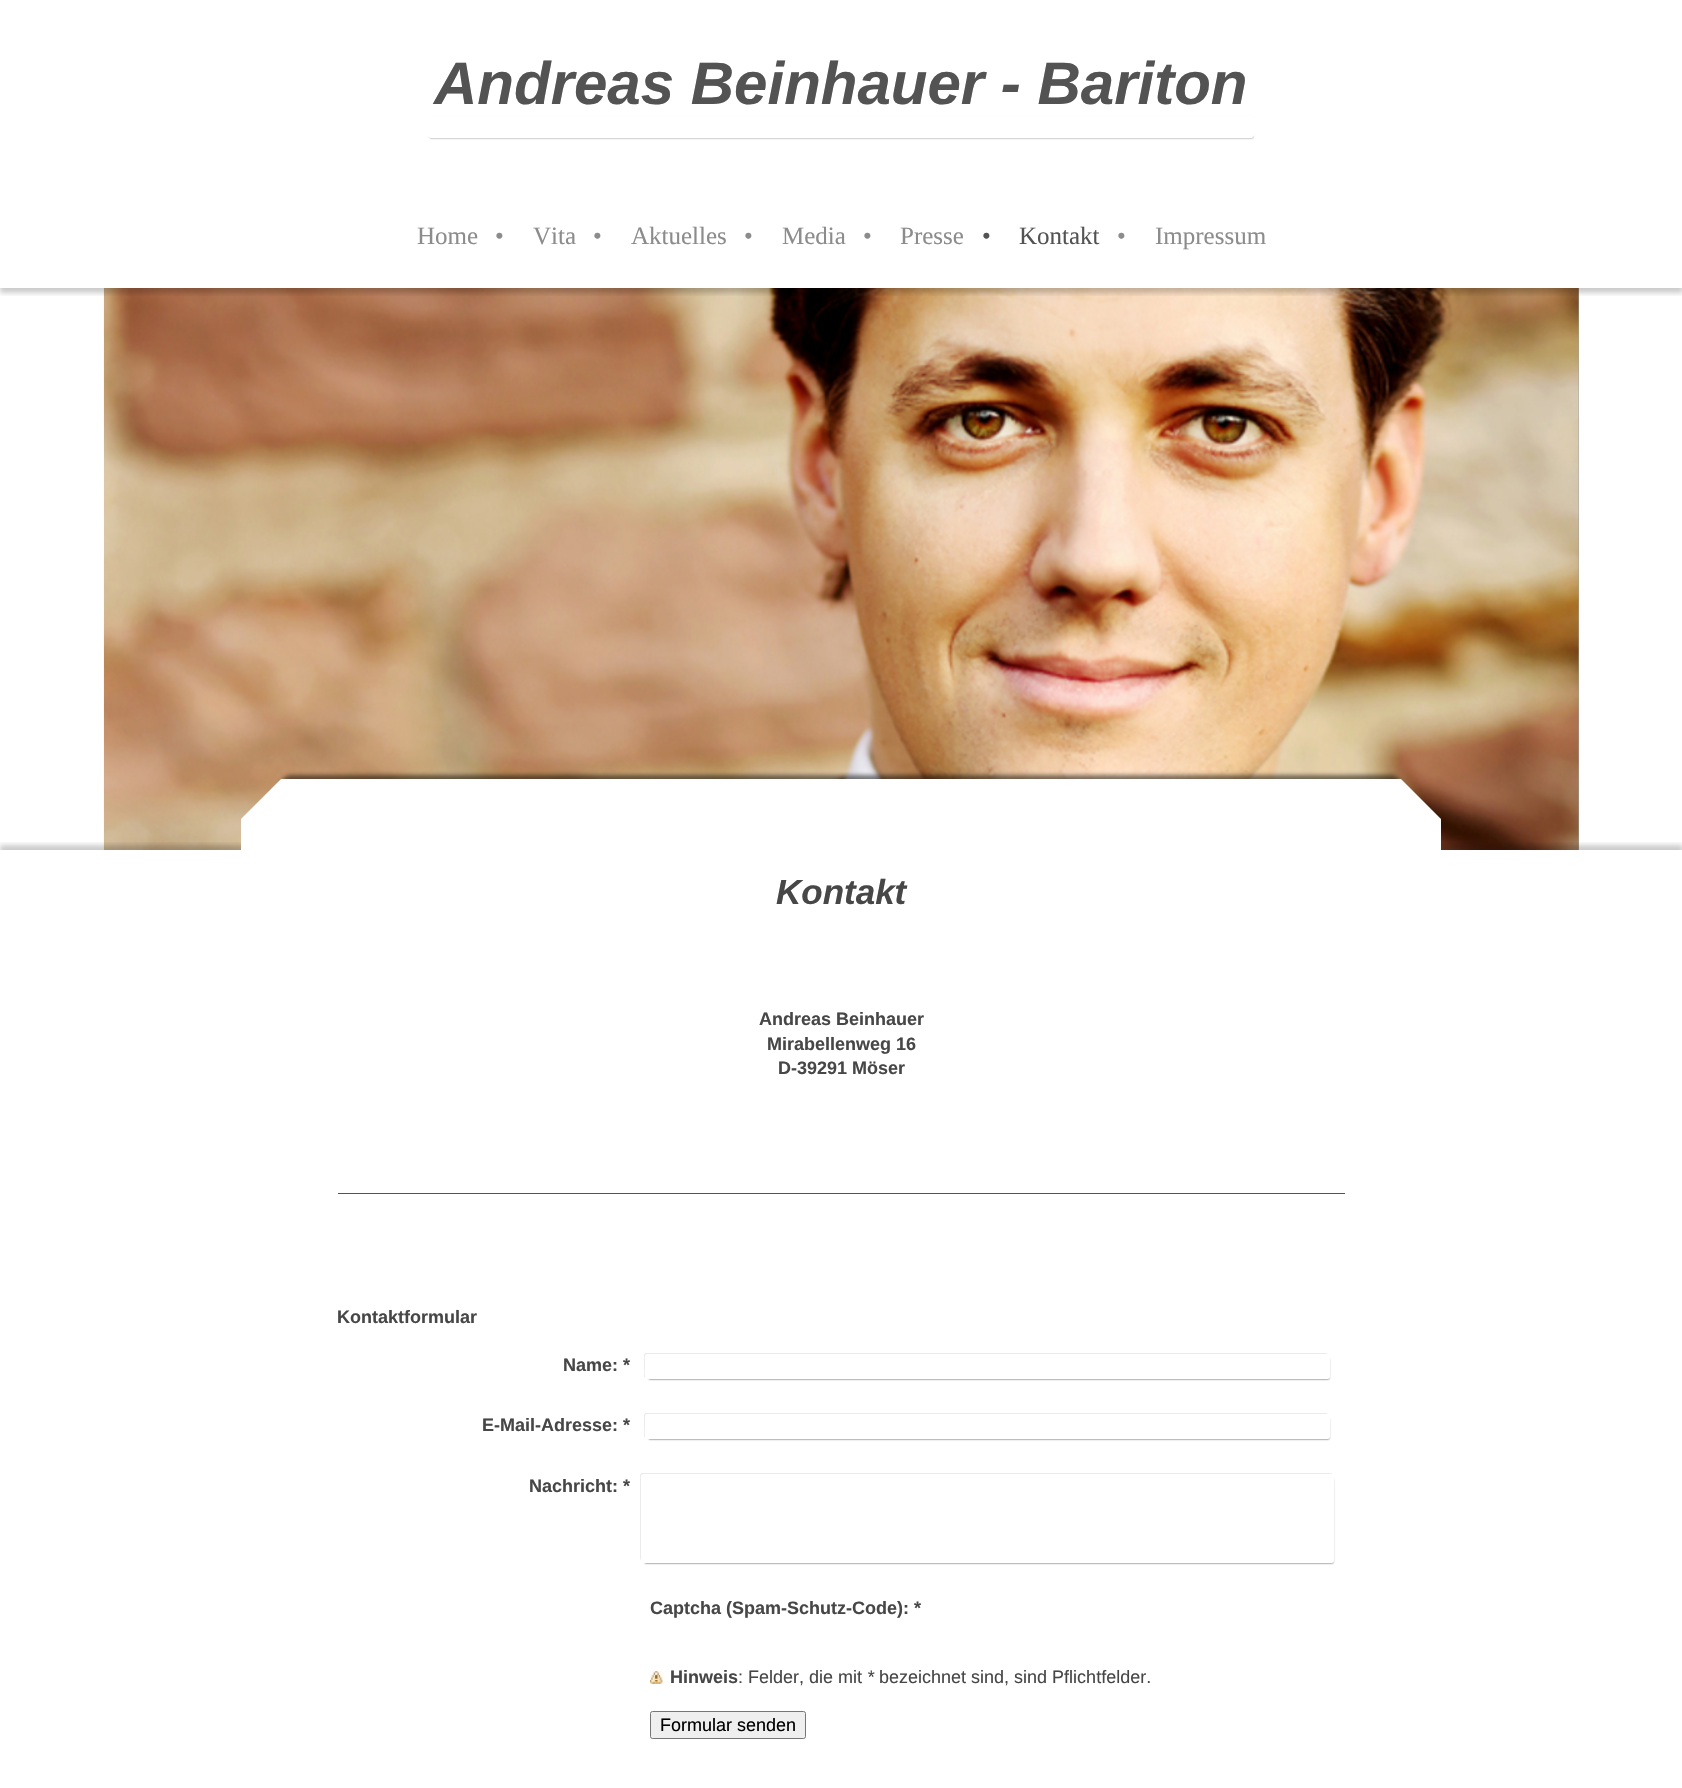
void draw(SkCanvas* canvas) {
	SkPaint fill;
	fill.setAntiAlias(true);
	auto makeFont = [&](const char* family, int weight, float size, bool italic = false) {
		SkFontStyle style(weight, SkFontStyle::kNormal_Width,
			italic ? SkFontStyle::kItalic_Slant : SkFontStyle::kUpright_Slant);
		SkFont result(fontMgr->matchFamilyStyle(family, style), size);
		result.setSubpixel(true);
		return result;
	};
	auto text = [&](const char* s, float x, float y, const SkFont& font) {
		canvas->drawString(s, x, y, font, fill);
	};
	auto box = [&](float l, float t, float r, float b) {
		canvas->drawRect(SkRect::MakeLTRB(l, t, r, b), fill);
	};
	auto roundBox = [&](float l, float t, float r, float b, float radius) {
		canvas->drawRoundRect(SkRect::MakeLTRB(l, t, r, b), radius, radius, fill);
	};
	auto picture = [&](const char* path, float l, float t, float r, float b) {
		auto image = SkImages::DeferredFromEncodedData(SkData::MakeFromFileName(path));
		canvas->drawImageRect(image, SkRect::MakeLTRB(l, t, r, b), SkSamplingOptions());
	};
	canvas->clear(0xFFFFFFFF);
	fill.setColor(0x80000000);
	fill.setMaskFilter(SkMaskFilter::MakeBlur(kNormal_SkBlurStyle, 1));
	canvas->drawRect(SkRect::MakeLTRB(430, 118, 1253, 138), fill);
	fill.setMaskFilter(nullptr);
	fill.setColor(0xFFFFFFFF);
	box(429, 116, 1254, 118);
	canvas->drawPath(SkPathBuilder().moveTo(410, 118).lineTo(1272, 118).lineTo(1252, 138).lineTo(430, 138).close().detach(), fill);
	fill.setColor(0xFFA0A0A0);
	box(1578, 288, 1579, 850);
	picture("image0.png", 103, 288, 1579, 850);
	canvas->save();
	canvas->clipRect(SkRect::MakeLTRB(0, 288, 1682, 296));
	fill.setColor(0x33000000);
	fill.setMaskFilter(SkMaskFilter::MakeBlur(kNormal_SkBlurStyle, 2.5f));
	canvas->drawRect(SkRect::MakeLTRB(0, 191, 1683, 293), fill);
	fill.setMaskFilter(nullptr);
	canvas->restore();
	fill.setColor(0xFFFFFFFF);
	box(0, 287, 1682, 288);
	canvas->save();
	canvas->clipRect(SkRect::MakeLTRB(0, 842, 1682, 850));
	fill.setColor(0x33000000);
	fill.setMaskFilter(SkMaskFilter::MakeBlur(kNormal_SkBlurStyle, 2.5f));
	canvas->drawRect(SkRect::MakeLTRB(0, 845, 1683, 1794), fill);
	fill.setMaskFilter(nullptr);
	canvas->restore();
	fill.setColor(0xFFFFFFFF);
	box(241, 819, 1441, 850);
	fill.setColor(0x80000000);
	fill.setMaskFilter(SkMaskFilter::MakeBlur(kNormal_SkBlurStyle, 2));
	canvas->drawRoundRect(SkRect::MakeLTRB(281, 775, 1401, 795), 10, 10, fill);
	fill.setMaskFilter(nullptr);
	fill.setColor(0xFFFFFFFF);
	canvas->drawPath(SkPathBuilder().moveTo(1441, 819).lineTo(241, 819).lineTo(281, 779).lineTo(1401, 779).close().detach(), fill);
	fill.setColor(0xFF535353);
	box(338, 1193, 1345, 1194);
	fill.setColor(0xFFEBEBEB);
	canvas->drawPath(SkPathBuilder().moveTo(646, 1353).cubicTo(645, 1353, 644, 1354, 644, 1356).lineTo(644, 1376).cubicTo(644, 1377, 645, 1377, 646, 1378).cubicTo(644, 1376, 645, 1369, 645, 1366).lineTo(645, 1360).cubicTo(645, 1358, 644, 1354, 648, 1354).lineTo(1328, 1354).lineTo(1326, 1353).close().detach(), fill);
	fill.setColor(0xCC000000);
	fill.setMaskFilter(SkMaskFilter::MakeBlur(kNormal_SkBlurStyle, 1));
	canvas->drawRect(SkRect::MakeLTRB(649, 1359, 1329, 1379), fill);
	fill.setMaskFilter(nullptr);
	fill.setColor(0xFFFFFFFF);
	roundBox(645, 1354, 1330, 1379, 2.5f);
	fill.setColor(0xFFEBEBEB);
	canvas->drawPath(SkPathBuilder().moveTo(646, 1413).cubicTo(645, 1413, 644, 1414, 644, 1416).lineTo(644, 1436).cubicTo(644, 1437, 645, 1437, 646, 1438).cubicTo(644, 1436, 645, 1429, 645, 1426).lineTo(645, 1420).cubicTo(645, 1418, 644, 1414, 648, 1414).lineTo(1328, 1414).lineTo(1326, 1413).close().detach(), fill);
	fill.setColor(0xCC000000);
	fill.setMaskFilter(SkMaskFilter::MakeBlur(kNormal_SkBlurStyle, 1));
	canvas->drawRect(SkRect::MakeLTRB(649, 1419, 1329, 1439), fill);
	fill.setMaskFilter(nullptr);
	fill.setColor(0xFFFFFFFF);
	roundBox(645, 1414, 1330, 1439, 2.5f);
	fill.setColor(0xFFEBEBEB);
	canvas->drawPath(SkPathBuilder().moveTo(642, 1473).cubicTo(641, 1473, 640, 1474, 640, 1476).lineTo(640, 1558).cubicTo(640, 1559, 641, 1560, 641, 1561).lineTo(641, 1476).cubicTo(641, 1475, 642, 1474, 644, 1474).lineTo(1331, 1474).lineTo(1333, 1474).lineTo(1330, 1473).close().detach(), fill);
	fill.setColor(0xCC000000);
	fill.setMaskFilter(SkMaskFilter::MakeBlur(kNormal_SkBlurStyle, 1));
	canvas->drawRect(SkRect::MakeLTRB(645, 1479, 1333, 1563), fill);
	fill.setMaskFilter(nullptr);
	fill.setColor(0xFFFFFFFF);
	roundBox(641, 1474, 1334, 1563, 2.5f);
	picture("image1.png", 650, 1671, 663, 1684);
	fill.setColor(0xFFEFEFEF);
	canvas->drawRoundRect(SkRect::MakeLTRB(650.5f, 1711.5f, 805.5f, 1738.5f), 2, 2, fill);
	fill.setStyle(SkPaint::kStroke_Style);
	fill.setStrokeWidth(1);
	fill.setColor(0xFF767676);
	canvas->drawRoundRect(SkRect::MakeLTRB(650.5f, 1711.5f, 805.5f, 1738.5f), 2, 2, fill);
	auto font1 = makeFont("Liberation Sans", 700, 60, true);
	fill.setStyle(SkPaint::kFill_Style);
	fill.setColor(0xFF535353);
	text("Andreas Beinhauer - Bariton", 434, 104, font1);
	auto font2 = makeFont("Liberation Serif", 400, 25);
	fill.setColor(0xFF8C8C8C);
	text("Home", 417, 244, font2);
	text("•", 495, 244, font2);
	text("Vita", 533, 244, font2);
	text("•", 593, 244, font2);
	text("Aktuelles", 631, 244, font2);
	text("•", 744, 244, font2);
	text("Media", 782, 244, font2);
	text("•", 863, 244, font2);
	text("Presse", 900, 244, font2);
	fill.setColor(0xFF535353);
	text("•", 982, 244, font2);
	text("Kontakt", 1019, 244, font2);
	fill.setColor(0xFF8C8C8C);
	text("•", 1117, 244, font2);
	text("Impressum", 1155, 244, font2);
	auto font3 = makeFont("Liberation Sans", 700, 35, true);
	fill.setColor(0xFF474747);
	text("Kontakt", 776, 904, font3);
	auto font4 = makeFont("Liberation Sans", 700, 18);
	text("Andreas Beinhauer", 759, 1025, font4);
	text("Mirabellenweg 16", 767, 1050, font4);
	text("D-39291 Möser", 778, 1074, font4);
	text("Kontaktformular", 337, 1323, font4);
	text("Name: *", 563, 1371, font4);
	text("E-Mail-Adresse: *", 482, 1431, font4);
	text("Nachricht: *", 529, 1492, font4);
	text("Captcha (Spam-Schutz-Code): *", 650, 1614, font4);
	text("Hinweis", 670, 1683, font4);
	auto font5 = makeFont("Liberation Sans", 400, 18);
	text(": Felder, die mit", 738, 1683, font5);
	auto font6 = makeFont("Liberation Sans", 400, 18, true);
	text("*", 867, 1683, font6);
	text("bezeichnet sind, sind Pflichtfelder.", 879, 1683, font5);
	fill.setColor(0xFF000000);
	text("Formular senden", 660, 1731, font5);
}
